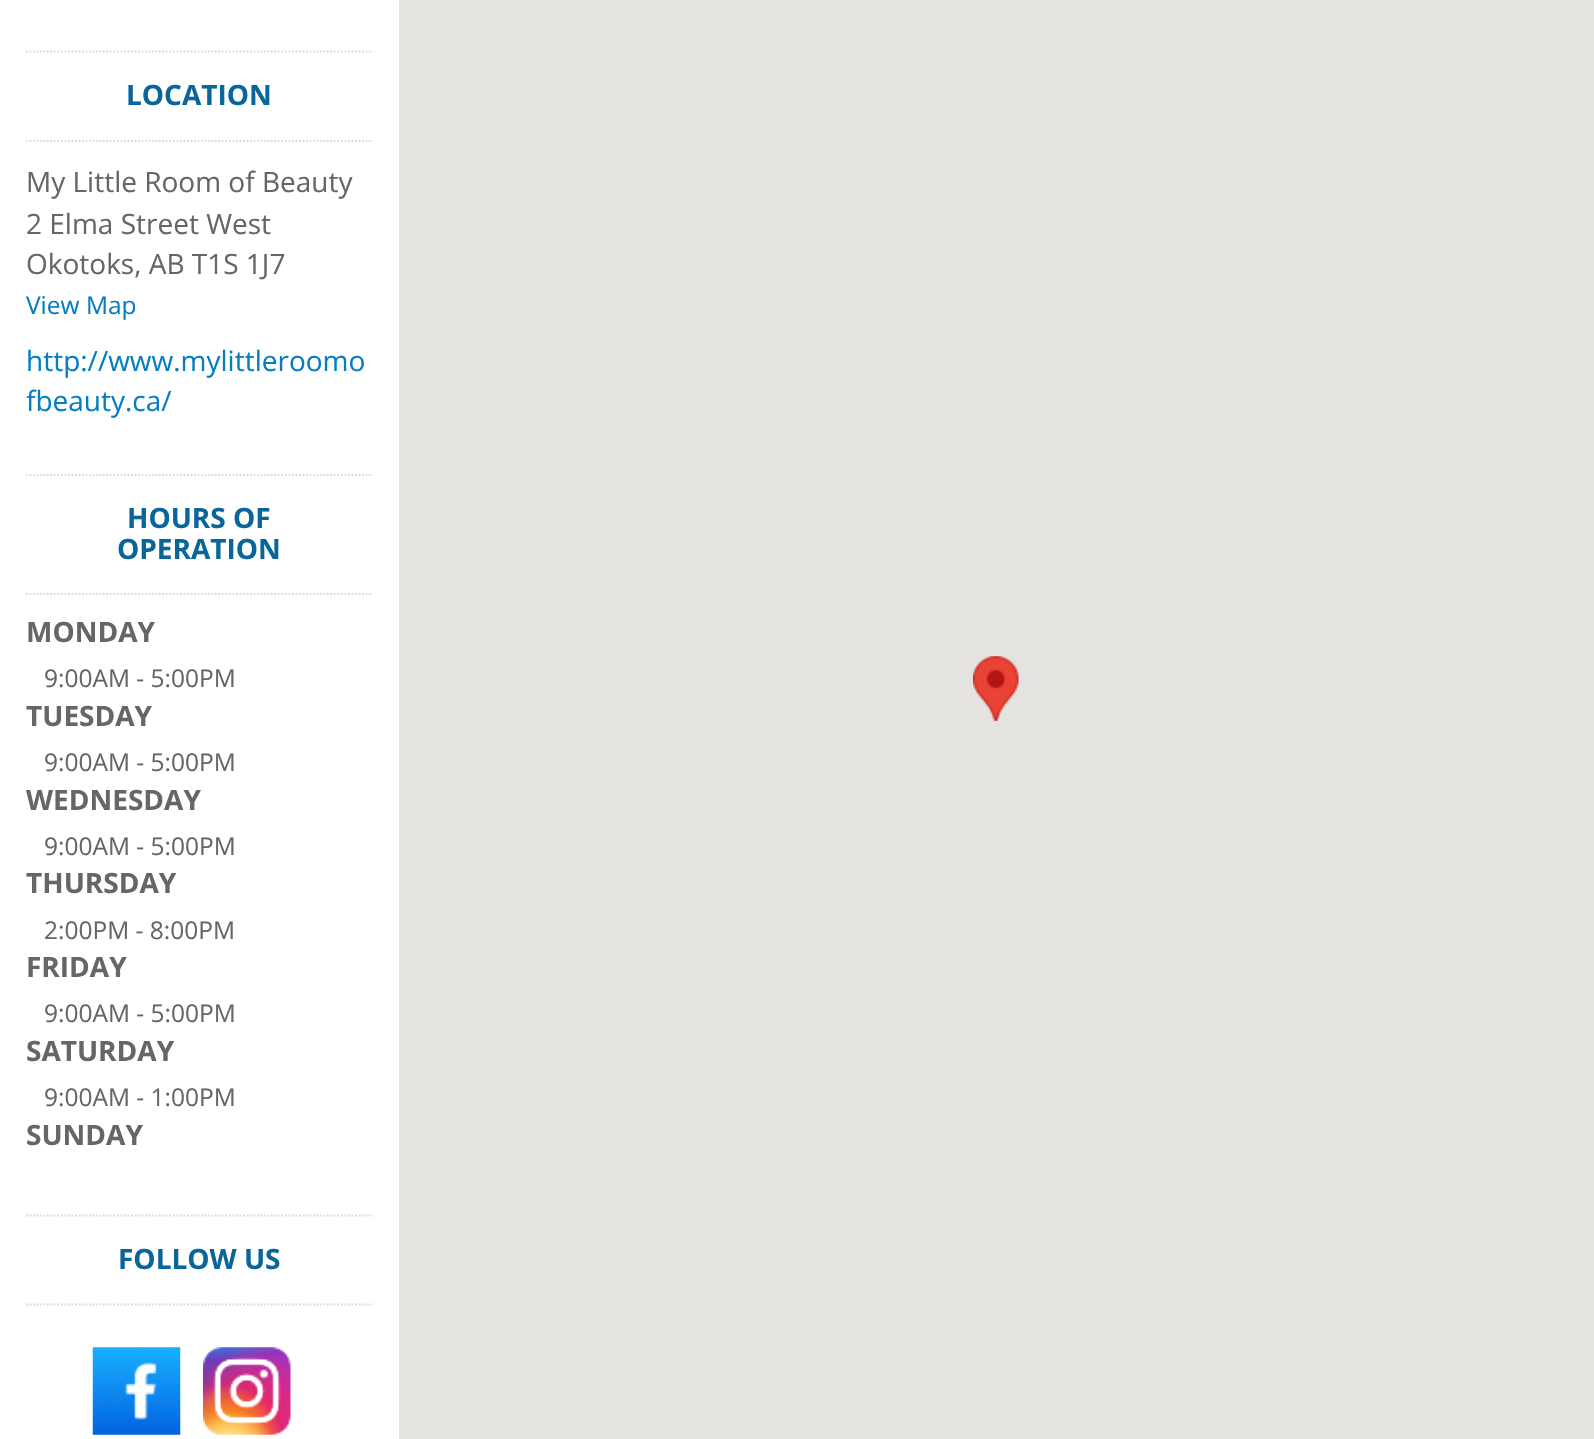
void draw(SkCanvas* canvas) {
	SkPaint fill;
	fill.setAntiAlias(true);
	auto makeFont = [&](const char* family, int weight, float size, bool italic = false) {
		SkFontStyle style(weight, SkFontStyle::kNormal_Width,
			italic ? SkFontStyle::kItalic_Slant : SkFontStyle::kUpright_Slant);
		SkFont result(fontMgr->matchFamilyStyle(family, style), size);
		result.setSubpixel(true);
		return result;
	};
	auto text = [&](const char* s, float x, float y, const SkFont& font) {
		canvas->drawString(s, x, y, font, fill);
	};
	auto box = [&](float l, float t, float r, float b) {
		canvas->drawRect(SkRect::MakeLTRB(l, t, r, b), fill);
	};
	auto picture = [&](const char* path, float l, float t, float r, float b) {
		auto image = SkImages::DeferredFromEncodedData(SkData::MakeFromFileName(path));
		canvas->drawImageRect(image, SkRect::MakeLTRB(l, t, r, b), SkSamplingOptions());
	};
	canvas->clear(0xFFFFFFFF);
	fill.setStyle(SkPaint::kStroke_Style);
	fill.setStrokeWidth(1.8f);
	fill.setColor(0xFFDADADA);
	fill.setPathEffect(SkDashPathEffect::Make({{1.75f, 1.75f}}, 0));
	canvas->drawPath(SkPathBuilder().moveTo(26, 51.5f).lineTo(373, 51.5f).detach(), fill);
	fill.setPathEffect(nullptr);
	fill.setPathEffect(SkDashPathEffect::Make({{1.75f, 1.75f}}, 0));
	canvas->drawPath(SkPathBuilder().moveTo(26, 141).lineTo(373, 141).detach(), fill);
	fill.setPathEffect(nullptr);
	fill.setPathEffect(SkDashPathEffect::Make({{1.75f, 1.75f}}, 0));
	canvas->drawPath(SkPathBuilder().moveTo(26, 475).lineTo(373, 475).detach(), fill);
	fill.setPathEffect(nullptr);
	fill.setPathEffect(SkDashPathEffect::Make({{1.75f, 1.75f}}, 0));
	canvas->drawPath(SkPathBuilder().moveTo(26, 594).lineTo(373, 594).detach(), fill);
	fill.setPathEffect(nullptr);
	fill.setPathEffect(SkDashPathEffect::Make({{1.75f, 1.75f}}, 0));
	canvas->drawPath(SkPathBuilder().moveTo(26, 1215.5f).lineTo(373, 1215.5f).detach(), fill);
	fill.setPathEffect(nullptr);
	fill.setPathEffect(SkDashPathEffect::Make({{1.75f, 1.75f}}, 0));
	canvas->drawPath(SkPathBuilder().moveTo(26, 1304.5f).lineTo(373, 1304.5f).detach(), fill);
	fill.setPathEffect(nullptr);
	picture("image0.png", 92, 1347, 181, 1435);
	picture("image1.png", 203, 1347, 291, 1435);
	fill.setStyle(SkPaint::kFill_Style);
	fill.setColor(0xFFE5E3DF);
	box(399, 0, 1594, 1439);
	picture("image2.png", 973, 656, 1019, 721);
	auto font1 = makeFont("Open Sans", 700, 28);
	fill.setColor(0xFF09669A);
	text("LOCATION", 126, 105, font1);
	auto font2 = makeFont("Open Sans", 400, 28);
	fill.setColor(0xFF666666);
	text("My Little Room of Beauty", 26, 192, font2);
	text("2 Elma Street West", 26, 234, font2);
	text("Okotoks, AB T1S 1J7", 26, 274, font2);
	auto font3 = makeFont("Open Sans", 400, 24.5f);
	fill.setColor(0xFF057EC1);
	text("View Map", 26, 314, font3);
	text("http://www.mylittleroomo", 26, 371, font2);
	text("fbeauty.ca/", 26, 411, font2);
	fill.setColor(0xFF09669A);
	text("HOURS OF", 127, 528, font1);
	text("OPERATION", 117, 559, font1);
	fill.setColor(0xFF666666);
	text("MONDAY", 26, 642, font1);
	text("9:00AM - 5:00PM", 44, 687, font3);
	text("TUESDAY", 26, 726, font1);
	text("9:00AM - 5:00PM", 44, 771, font3);
	text("WEDNESDAY", 26, 810, font1);
	text("9:00AM - 5:00PM", 44, 855, font3);
	text("THURSDAY", 26, 893, font1);
	text("2:00PM - 8:00PM", 44, 939, font3);
	text("FRIDAY", 26, 977, font1);
	text("9:00AM - 5:00PM", 44, 1022, font3);
	text("SATURDAY", 26, 1061, font1);
	text("9:00AM - 1:00PM", 44, 1106, font3);
	text("SUNDAY", 26, 1145, font1);
	fill.setColor(0xFF09669A);
	text("FOLLOW US", 118, 1269, font1);
}
